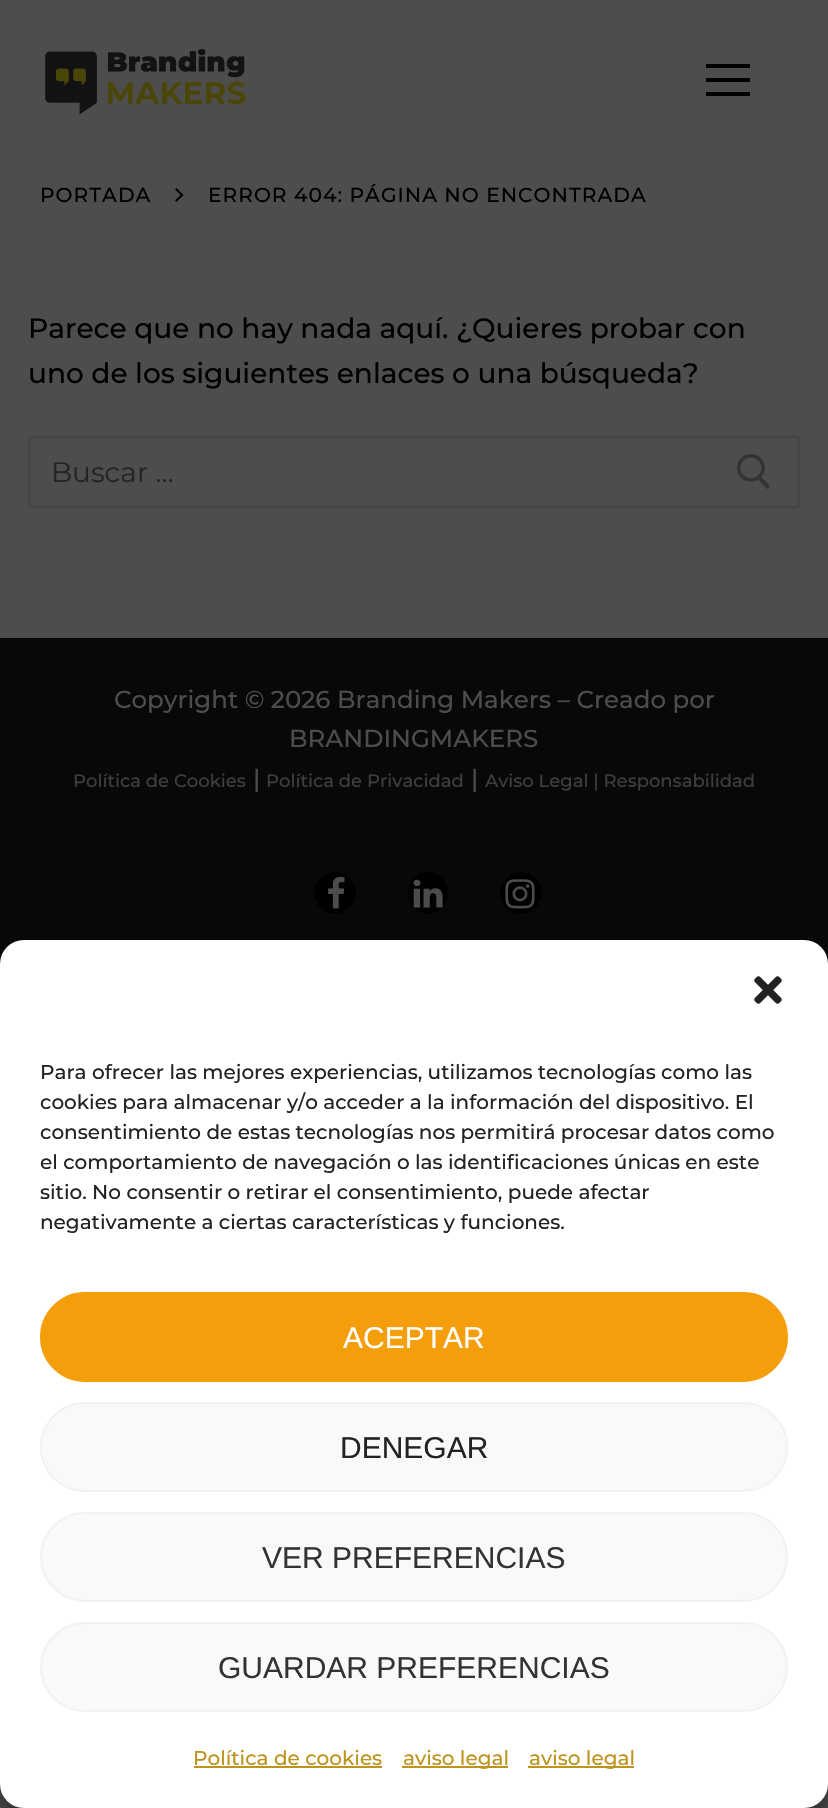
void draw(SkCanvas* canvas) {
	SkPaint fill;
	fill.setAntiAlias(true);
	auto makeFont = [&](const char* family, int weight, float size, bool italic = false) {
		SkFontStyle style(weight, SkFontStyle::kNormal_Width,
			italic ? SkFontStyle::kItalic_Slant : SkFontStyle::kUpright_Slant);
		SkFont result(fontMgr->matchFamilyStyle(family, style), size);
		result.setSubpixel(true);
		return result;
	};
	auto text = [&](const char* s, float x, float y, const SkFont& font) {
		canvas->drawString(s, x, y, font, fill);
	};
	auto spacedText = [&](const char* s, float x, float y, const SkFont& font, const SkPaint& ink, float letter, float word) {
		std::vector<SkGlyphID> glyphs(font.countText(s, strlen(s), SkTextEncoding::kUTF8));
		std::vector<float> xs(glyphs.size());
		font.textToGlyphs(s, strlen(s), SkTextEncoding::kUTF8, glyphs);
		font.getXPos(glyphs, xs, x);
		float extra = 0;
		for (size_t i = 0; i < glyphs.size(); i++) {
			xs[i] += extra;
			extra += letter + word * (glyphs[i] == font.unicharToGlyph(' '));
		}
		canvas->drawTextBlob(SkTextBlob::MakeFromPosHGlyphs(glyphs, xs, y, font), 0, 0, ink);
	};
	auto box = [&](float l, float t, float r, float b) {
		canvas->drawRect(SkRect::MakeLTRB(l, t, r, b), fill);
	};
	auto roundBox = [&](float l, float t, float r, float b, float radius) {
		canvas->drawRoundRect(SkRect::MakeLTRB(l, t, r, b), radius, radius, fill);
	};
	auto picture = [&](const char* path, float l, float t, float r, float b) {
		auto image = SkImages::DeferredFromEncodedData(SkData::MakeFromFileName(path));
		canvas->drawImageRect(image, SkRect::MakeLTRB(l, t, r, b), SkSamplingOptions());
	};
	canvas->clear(0xFF4D4D4D);
	picture("image0.png", 45, 48, 246, 115);
	fill.setColor(0xFF000000);
	box(706, 78, 750, 82);
	box(706, 64, 750, 68);
	box(706, 92, 750, 96);
	canvas->drawPath(SkPathBuilder().moveTo(183.5f, 195).lineTo(176.5f, 202).lineTo(175, 200.5f).lineTo(182, 193.5f).close().detach(), fill);
	canvas->drawPath(SkPathBuilder().moveTo(183.5f, 195).lineTo(182, 196.5f).lineTo(175, 189.5f).lineTo(176.5f, 188).close().detach(), fill);
	fill.setStyle(SkPaint::kStroke_Style);
	fill.setStrokeWidth(2);
	fill.setColor(0xFF454545);
	canvas->drawRoundRect(SkRect::MakeLTRB(29, 437, 799, 507), 1, 1, fill);
	picture("image1.png", 736, 454, 770, 489);
	fill.setStyle(SkPaint::kFill_Style);
	fill.setColor(0xFF080808);
	box(0, 638, 828, 964);
	fill.setColor(0xFF000000);
	canvas->drawCircle(335, 893, 21, fill);
	picture("image2.png", 328, 876, 345, 909);
	roundBox(408, 872, 448, 914, 20);
	picture("image3.png", 413, 879, 443, 908);
	canvas->drawCircle(521, 893, 21, fill);
	picture("image4.png", 505, 879, 535, 909);
	fill.setColor(0x3B000000);
	fill.setMaskFilter(SkMaskFilter::MakeBlur(kNormal_SkBlurStyle, 6));
	canvas->drawRoundRect(SkRect::MakeLTRB(0, 952, 828, 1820), 24, 24, fill);
	fill.setMaskFilter(nullptr);
	fill.setColor(0x30000000);
	fill.setMaskFilter(SkMaskFilter::MakeBlur(kNormal_SkBlurStyle, 20));
	canvas->drawRoundRect(SkRect::MakeLTRB(0, 960, 828, 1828), 24, 24, fill);
	fill.setMaskFilter(nullptr);
	fill.setColor(0xFFFFFFFF);
	roundBox(0, 940, 828, 1808, 24);
	picture("image5.png", 754, 976, 782, 1004);
	fill.setColor(0xFFF59E0B);
	canvas->drawRoundRect(SkRect::MakeLTRB(41, 1293, 787, 1381), 44, 44, fill);
	fill.setStyle(SkPaint::kStroke_Style);
	canvas->drawRoundRect(SkRect::MakeLTRB(41, 1293, 787, 1381), 44, 44, fill);
	fill.setStyle(SkPaint::kFill_Style);
	fill.setColor(0xFFF9F9F9);
	canvas->drawRoundRect(SkRect::MakeLTRB(41, 1403, 787, 1491), 44, 44, fill);
	fill.setStyle(SkPaint::kStroke_Style);
	fill.setColor(0xFFF2F2F2);
	canvas->drawRoundRect(SkRect::MakeLTRB(41, 1403, 787, 1491), 44, 44, fill);
	fill.setStyle(SkPaint::kFill_Style);
	fill.setColor(0xFFF9F9F9);
	canvas->drawRoundRect(SkRect::MakeLTRB(41, 1513, 787, 1601), 44, 44, fill);
	fill.setStyle(SkPaint::kStroke_Style);
	fill.setColor(0xFFF2F2F2);
	canvas->drawRoundRect(SkRect::MakeLTRB(41, 1513, 787, 1601), 44, 44, fill);
	fill.setStyle(SkPaint::kFill_Style);
	fill.setColor(0xFFF9F9F9);
	canvas->drawRoundRect(SkRect::MakeLTRB(41, 1623, 787, 1711), 44, 44, fill);
	fill.setStyle(SkPaint::kStroke_Style);
	fill.setColor(0xFFF2F2F2);
	canvas->drawRoundRect(SkRect::MakeLTRB(41, 1623, 787, 1711), 44, 44, fill);
	fill.setStyle(SkPaint::kFill_Style);
	fill.setColor(0xFFBE941E);
	box(194, 1766, 382, 1768);
	box(402, 1766, 508, 1768);
	box(528, 1766, 634, 1768);
	auto font1 = makeFont("Montserrat", 500, 20.2f);
	fill.setColor(0xFF000000);
	spacedText("PORTADA", 40, 202, font1, fill, 1, 0);
	spacedText("ERROR 404: PÁGINA NO ENCONTRADA", 208, 202, font1, fill, 1, 0);
	auto font2 = makeFont("Montserrat", 500, 28);
	text("Parece que no hay nada aquí. ¿Quieres probar con", 28, 338, font2);
	text("uno de los siguientes enlaces o una búsqueda?", 28, 383, font2);
	auto font3 = makeFont("Montserrat", 400, 28);
	fill.setColor(0xFF232323);
	text("Buscar …", 51, 482, font3);
	auto font4 = makeFont("Montserrat", 500, 24.5f);
	fill.setColor(0xFF4C4C4C);
	text("Copyright © 2026 Branding Makers – Creado por", 114, 708, font4);
	text("BRANDINGMAKERS", 289, 747, font4);
	auto font5 = makeFont("Montserrat", 500, 18);
	fill.setColor(0xFF3E3E3E);
	text("Política de Cookies", 73, 787, font5);
	fill.setColor(0xFF4C4C4C);
	text("|", 253, 787, font4);
	fill.setColor(0xFF3E3E3E);
	text("Política de Privacidad", 266, 787, font5);
	fill.setColor(0xFF4C4C4C);
	text("|", 471, 787, font4);
	fill.setColor(0xFF3E3E3E);
	text("Aviso Legal | Responsabilidad", 485, 787, font5);
	auto font6 = makeFont("Montserrat", 500, 20);
	fill.setColor(0xFF232323);
	text("Para ofrecer las mejores experiencias, utilizamos tecnologías como las", 40, 1079, font6);
	text("cookies para almacenar y/o acceder a la información del dispositivo. El", 40, 1109, font6);
	text("consentimiento de estas tecnologías nos permitirá procesar datos como", 40, 1139, font6);
	text("el comportamiento de navegación o las identificaciones únicas en este", 40, 1169, font6);
	text("sitio. No consentir o retirar el consentimiento, puede afectar", 40, 1199, font6);
	text("negativamente a ciertas características y funciones.", 40, 1229, font6);
	auto font7 = makeFont("Liberation Sans", 400, 30);
	fill.setColor(0xFFFFFFFF);
	text("ACEPTAR", 343, 1348, font7);
	fill.setColor(0xFF232323);
	text("DENEGAR", 340, 1458, font7);
	fill.setColor(0xFF333333);
	text("VER PREFERENCIAS", 262, 1568, font7);
	text("GUARDAR PREFERENCIAS", 218, 1678, font7);
	fill.setColor(0xFFBE941E);
	text("Política de cookies", 193, 1765, font6);
	text("aviso legal", 403, 1765, font6);
	text("aviso legal", 529, 1765, font6);
}
